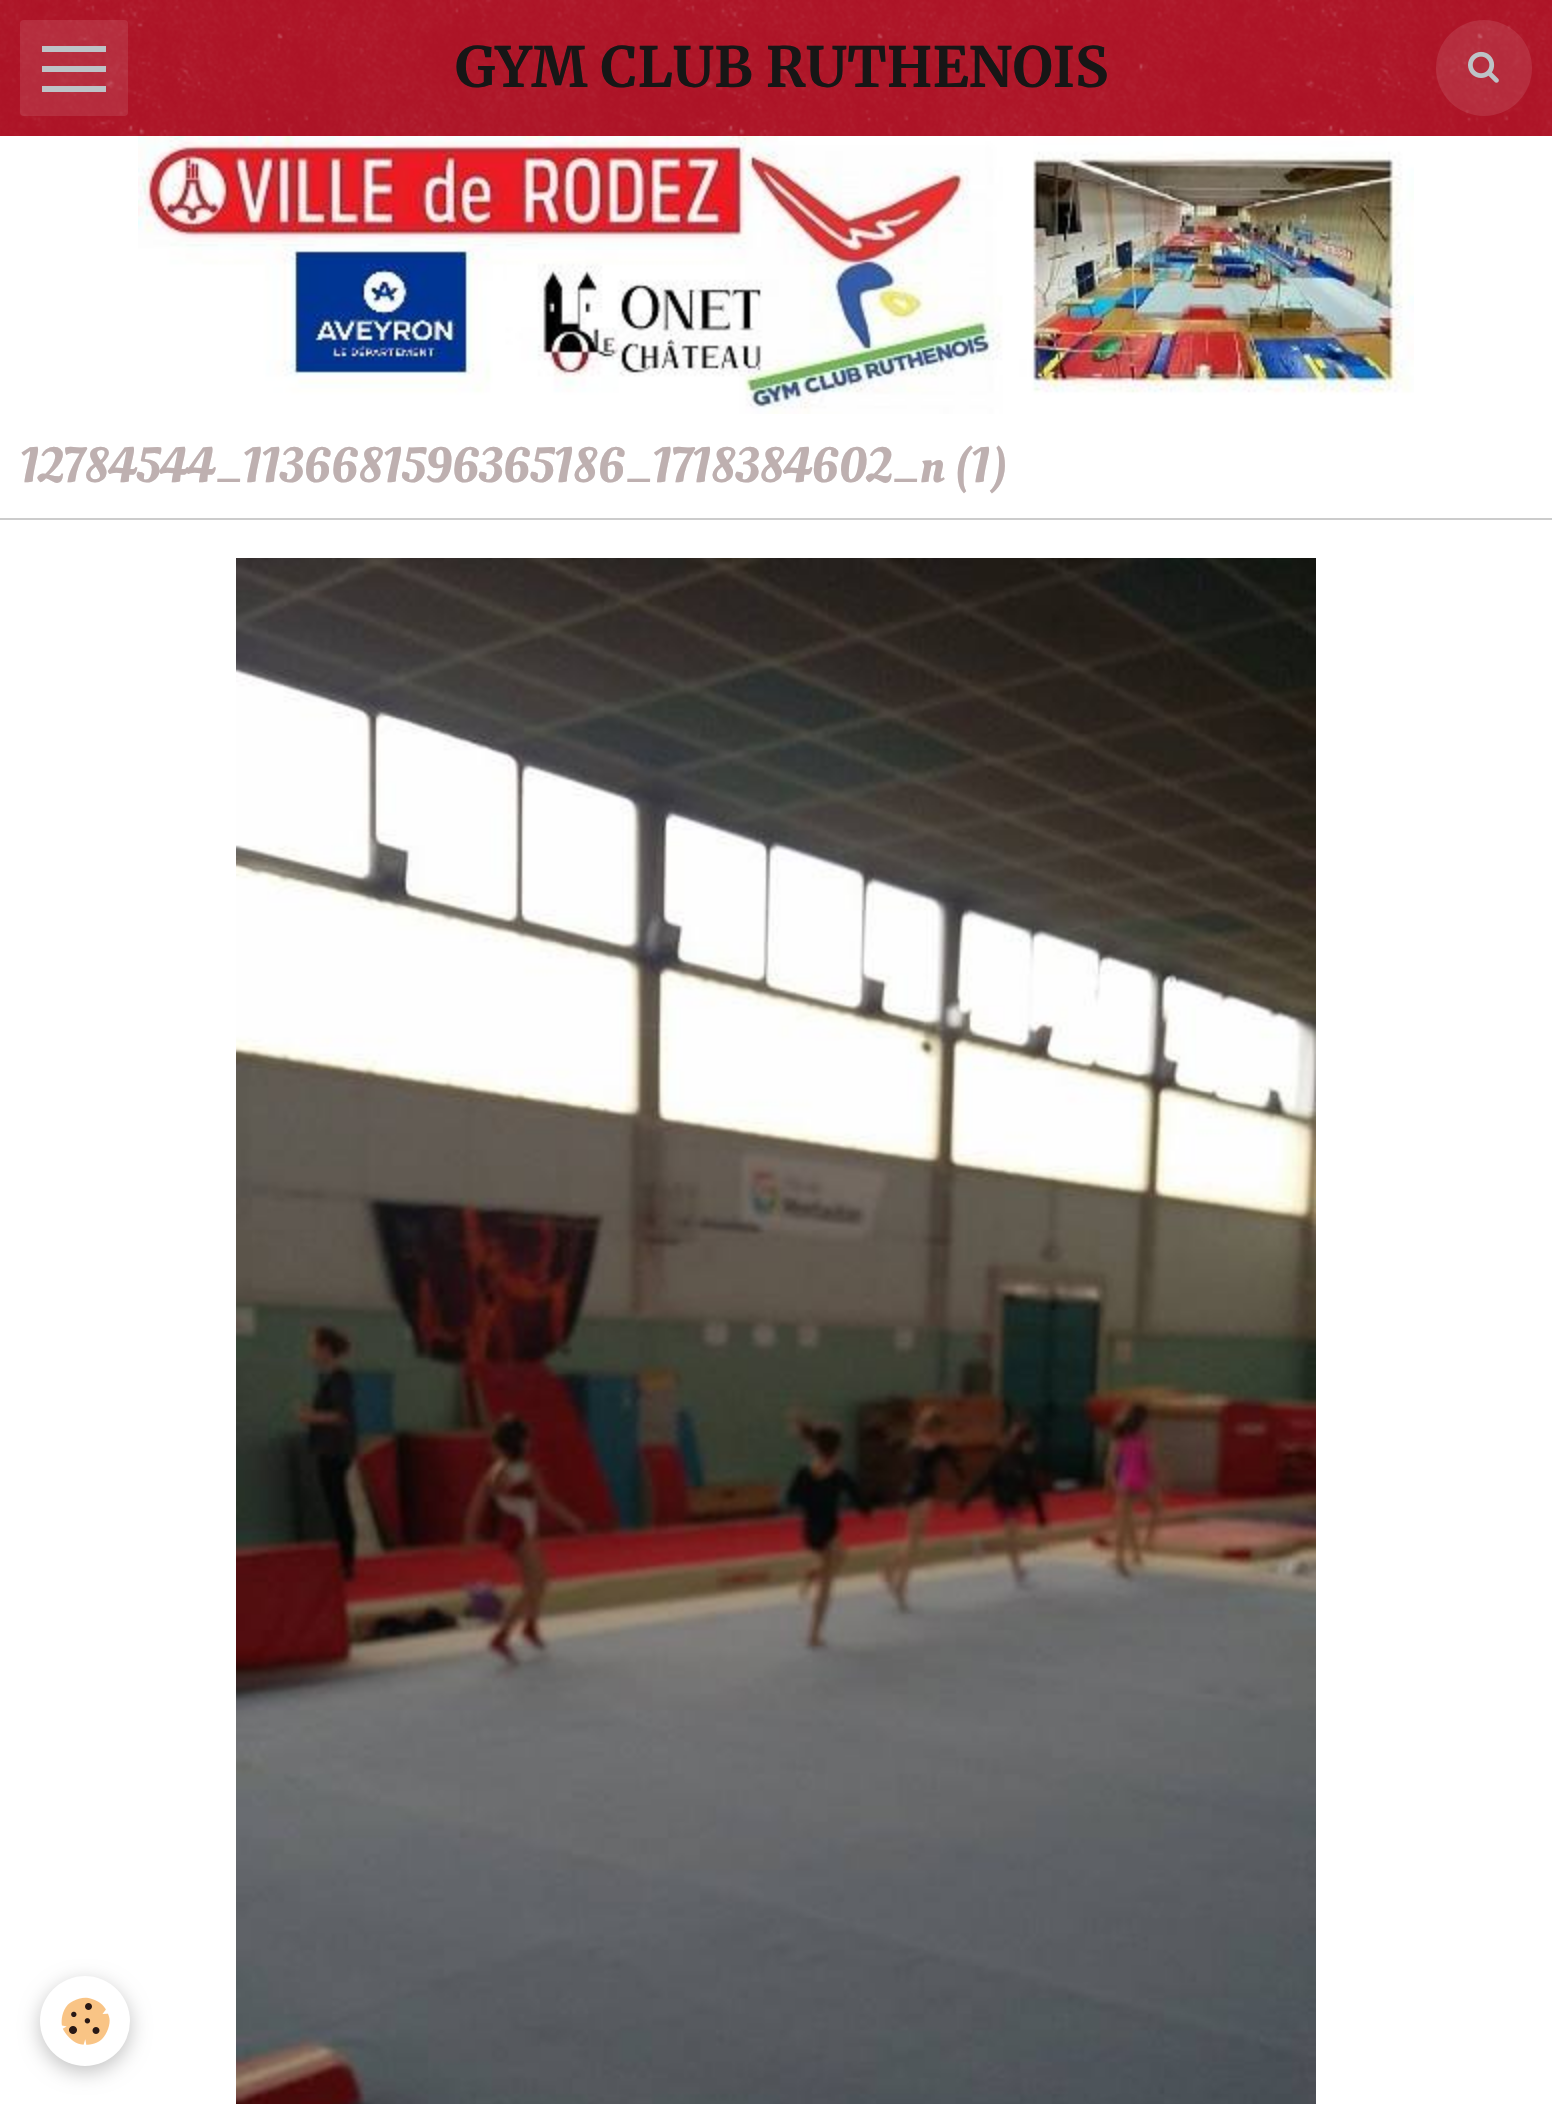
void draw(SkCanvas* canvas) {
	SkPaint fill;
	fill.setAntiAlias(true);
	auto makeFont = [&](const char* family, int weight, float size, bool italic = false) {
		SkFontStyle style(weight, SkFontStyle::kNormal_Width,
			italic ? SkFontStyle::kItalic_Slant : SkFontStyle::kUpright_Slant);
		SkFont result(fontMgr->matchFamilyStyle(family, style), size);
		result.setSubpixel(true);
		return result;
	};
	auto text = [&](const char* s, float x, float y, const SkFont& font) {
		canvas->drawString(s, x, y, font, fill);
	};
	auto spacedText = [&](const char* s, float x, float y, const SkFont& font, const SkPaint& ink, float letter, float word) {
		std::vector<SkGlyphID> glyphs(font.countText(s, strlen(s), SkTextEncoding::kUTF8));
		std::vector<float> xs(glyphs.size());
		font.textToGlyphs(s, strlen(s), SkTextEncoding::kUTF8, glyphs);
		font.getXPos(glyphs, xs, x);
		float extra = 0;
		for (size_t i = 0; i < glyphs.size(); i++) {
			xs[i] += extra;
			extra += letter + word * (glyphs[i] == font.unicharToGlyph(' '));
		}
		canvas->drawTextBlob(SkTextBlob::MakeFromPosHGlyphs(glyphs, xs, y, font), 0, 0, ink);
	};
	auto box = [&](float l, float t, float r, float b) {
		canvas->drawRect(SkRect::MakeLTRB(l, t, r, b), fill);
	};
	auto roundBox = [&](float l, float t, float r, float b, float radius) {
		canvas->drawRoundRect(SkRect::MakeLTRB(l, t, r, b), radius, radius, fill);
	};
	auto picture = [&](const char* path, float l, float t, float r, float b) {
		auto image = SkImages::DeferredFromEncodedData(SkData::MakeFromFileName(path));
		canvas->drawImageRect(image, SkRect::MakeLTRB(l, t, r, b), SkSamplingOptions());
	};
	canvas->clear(0xFFFFFFFF);
	fill.setColor(0xFFAC0F22);
	box(0, 0, 1552, 136);
	picture("image0.png", 0, 0, 1552, 136);
	fill.setColor(0x1AFFFFFF);
	roundBox(20, 20, 128, 116, 4);
	fill.setColor(0xFFBDC3C7);
	box(42, 66, 106, 72);
	box(42, 46, 106, 52);
	box(42, 86, 106, 92);
	fill.setColor(0x1AFFFFFF);
	canvas->drawCircle(1484, 68, 48, fill);
	picture("image1.png", 1468, 51, 1499, 83);
	picture("image2.png", 138, 136, 1414, 414);
	fill.setColor(0xFFCCCCCC);
	box(0, 518, 1552, 520);
	picture("image3.png", 236, 558, 1316, 2104);
	fill.setColor(0x3D000000);
	fill.setMaskFilter(SkMaskFilter::MakeBlur(kNormal_SkBlurStyle, 10));
	canvas->drawRoundRect(SkRect::MakeLTRB(40, 1982, 130, 2072), 45, 45, fill);
	fill.setMaskFilter(nullptr);
	fill.setColor(0xFFFFFFFF);
	canvas->drawCircle(85, 2021, 45, fill);
	picture("image4.png", 61, 1997, 110, 2045);
	auto font1 = makeFont("Merriweather", 700, 55.4f);
	fill.setColor(0xFF171616);
	text("GYM CLUB RUTHENOIS", 455, 87, font1);
	auto font2 = makeFont("Oleo Script", 400, 49.8f);
	fill.setColor(0xFFBEB0B0);
	spacedText("12784544_1136681596365186_1718384602_n (1)", 20, 482, font2, fill, 0, -1);
}
